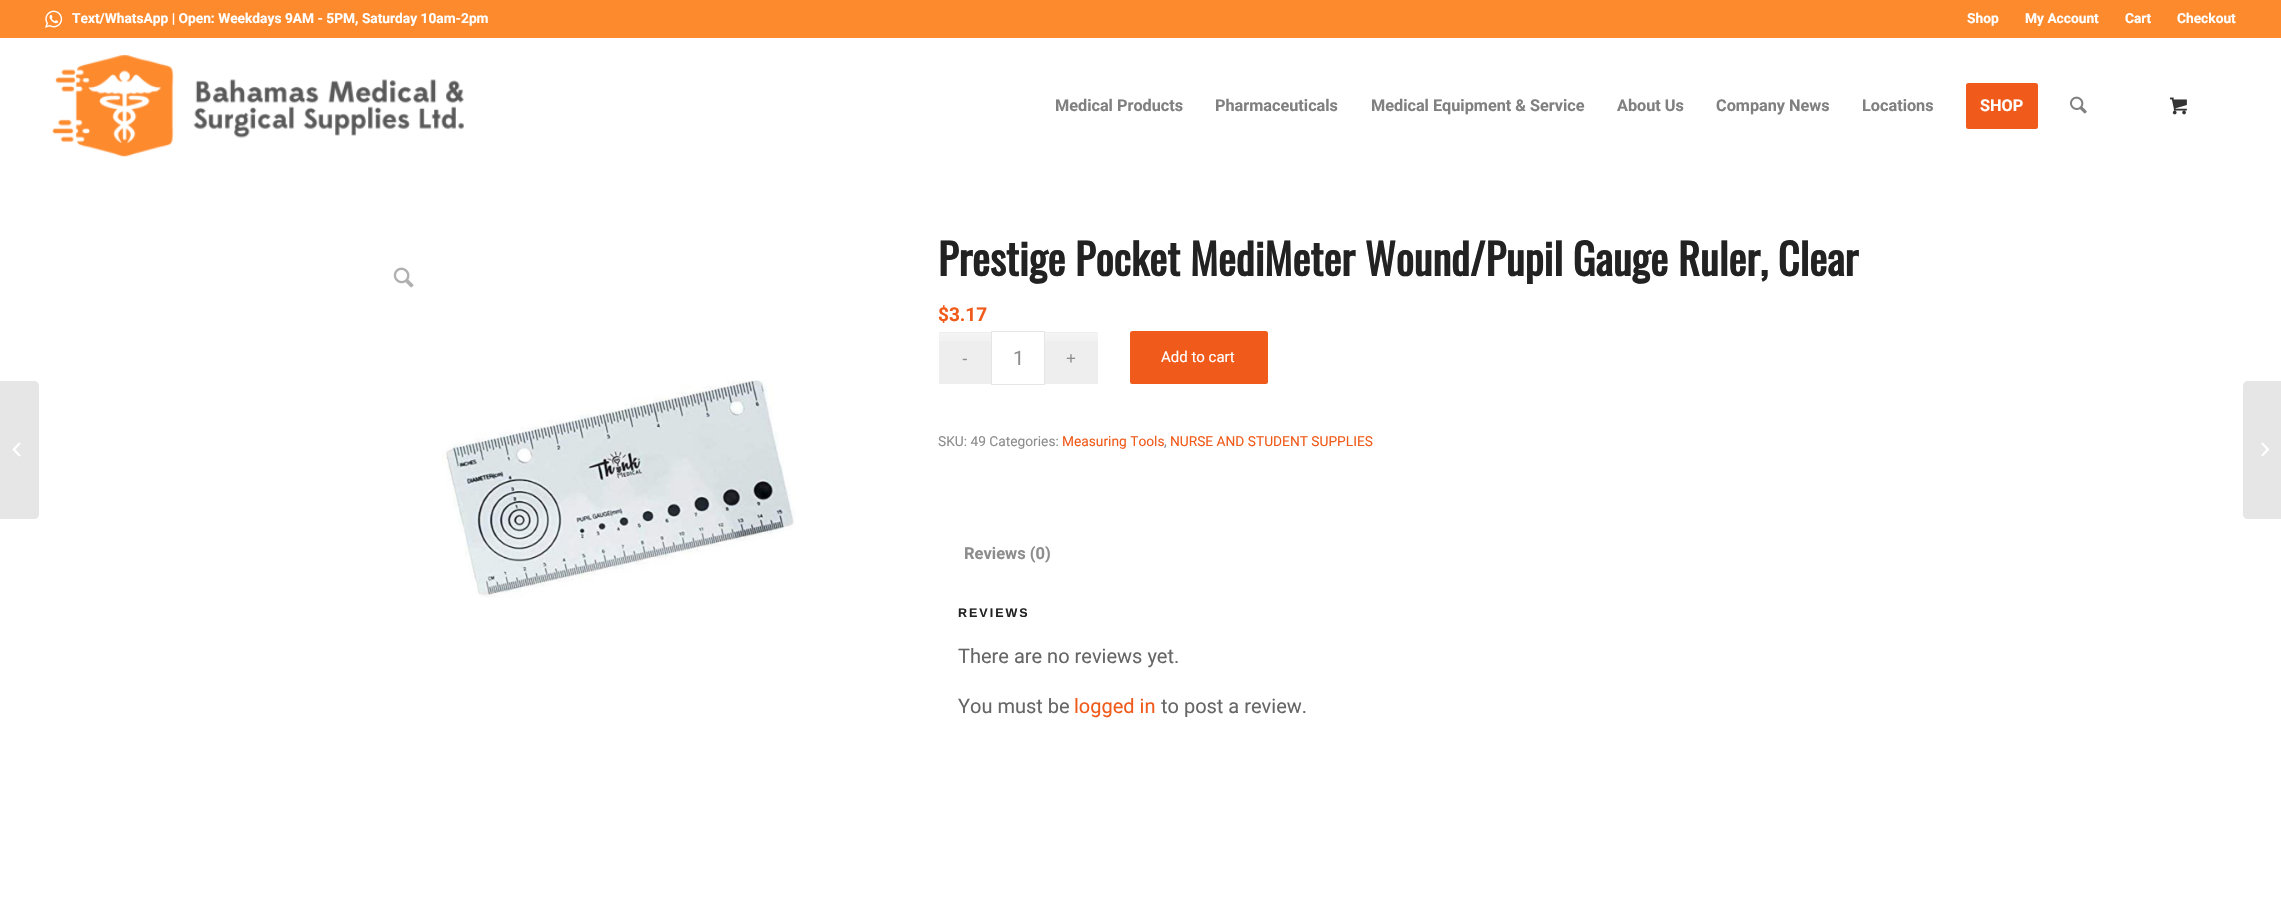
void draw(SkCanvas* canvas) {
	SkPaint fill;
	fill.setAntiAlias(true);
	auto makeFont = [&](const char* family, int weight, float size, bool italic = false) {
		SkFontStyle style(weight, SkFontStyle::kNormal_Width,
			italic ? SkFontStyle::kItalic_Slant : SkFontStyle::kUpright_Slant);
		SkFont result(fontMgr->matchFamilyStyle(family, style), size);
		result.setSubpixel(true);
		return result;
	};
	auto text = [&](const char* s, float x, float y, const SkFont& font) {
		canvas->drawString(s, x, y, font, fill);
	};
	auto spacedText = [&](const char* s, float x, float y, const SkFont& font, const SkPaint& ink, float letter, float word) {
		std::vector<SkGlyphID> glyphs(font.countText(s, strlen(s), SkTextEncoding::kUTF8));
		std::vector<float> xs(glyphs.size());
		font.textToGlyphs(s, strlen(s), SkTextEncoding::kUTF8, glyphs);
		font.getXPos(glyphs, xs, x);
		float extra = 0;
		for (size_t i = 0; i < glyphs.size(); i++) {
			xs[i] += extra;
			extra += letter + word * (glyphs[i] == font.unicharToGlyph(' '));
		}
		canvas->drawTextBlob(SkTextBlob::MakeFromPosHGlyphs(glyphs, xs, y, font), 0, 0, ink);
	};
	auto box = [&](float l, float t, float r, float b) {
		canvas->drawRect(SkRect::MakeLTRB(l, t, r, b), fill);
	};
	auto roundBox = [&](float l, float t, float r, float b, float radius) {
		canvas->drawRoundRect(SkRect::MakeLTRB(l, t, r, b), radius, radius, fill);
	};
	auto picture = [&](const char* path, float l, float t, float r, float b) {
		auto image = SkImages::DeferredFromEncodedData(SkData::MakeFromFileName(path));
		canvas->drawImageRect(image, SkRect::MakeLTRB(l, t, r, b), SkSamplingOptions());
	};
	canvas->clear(0xFFFFFFFF);
	fill.setColor(0xFFFD8A2D);
	box(0, 0, 2281, 38);
	picture("image0.png", 45, 10, 63, 28);
	picture("image1.png", 52, 55, 464, 157);
	fill.setColor(0xFFF05A1A);
	canvas->drawRoundRect(SkRect::MakeLTRB(1967.5f, 84.5f, 2036.5f, 127.5f), 1, 1, fill);
	fill.setStyle(SkPaint::kStroke_Style);
	fill.setStrokeWidth(3);
	canvas->drawRoundRect(SkRect::MakeLTRB(1967.5f, 84.5f, 2036.5f, 127.5f), 1, 1, fill);
	picture("image2.png", 2070, 96, 2087, 114);
	picture("image3.png", 2170, 97, 2187, 115);
	fill.setStyle(SkPaint::kFill_Style);
	fill.setColor(0xFFE6E6E6);
	canvas->drawPath(SkPathBuilder().moveTo(0, 381).lineTo(34, 381).cubicTo(37, 381, 39, 383, 39, 386).lineTo(39, 514).cubicTo(39, 517, 37, 519, 34, 519).lineTo(0, 519).close().detach(), fill);
	picture("image4.png", 12, 442, 21, 457);
	picture("image5.png", 393, 267, 414, 288);
	picture("image6.png", 442, 380, 796, 598);
	fill.setColor(0xFFEEEEEE);
	box(939, 332, 991, 384);
	picture("image7.png", 939, 333, 991, 341);
	box(1045, 332, 1098, 384);
	picture("image8.png", 1045, 333, 1098, 341);
	fill.setStyle(SkPaint::kStroke_Style);
	fill.setStrokeWidth(1);
	fill.setColor(0xFFE6E6E6);
	canvas->drawRect(SkRect::MakeLTRB(991.5f, 331.5f, 1044.5f, 384.5f), fill);
	fill.setStyle(SkPaint::kFill_Style);
	fill.setColor(0xFFF05A1A);
	roundBox(1130, 331, 1268, 384, 2.5f);
	fill.setColor(0xFFE6E6E6);
	canvas->drawPath(SkPathBuilder().moveTo(2248, 381).lineTo(2281, 381).lineTo(2281, 519).lineTo(2248, 519).cubicTo(2245, 519, 2243, 517, 2243, 514).lineTo(2243, 386).cubicTo(2243, 383, 2245, 381, 2248, 381).close().detach(), fill);
	picture("image9.png", 2261, 442, 2269, 457);
	auto font1 = makeFont("Roboto", 700, 13.75f);
	fill.setColor(0xFFFFFFFF);
	text("Text/WhatsApp | Open: Weekdays 9AM - 5PM, Saturday 10am-2pm", 72, 23, font1);
	text("Shop", 1967, 23, font1);
	text("My Account", 2025, 23, font1);
	text("Cart", 2125, 23, font1);
	text("Checkout", 2177, 23, font1);
	auto font2 = makeFont("Roboto", 700, 16.25f);
	fill.setColor(0xFF808080);
	text("Medical Products", 1055, 111, font2);
	text("Pharmaceuticals", 1215, 111, font2);
	text("Medical Equipment & Service", 1371, 111, font2);
	text("About Us", 1617, 111, font2);
	text("Company News", 1716, 111, font2);
	text("Locations", 1862, 111, font2);
	fill.setColor(0xFFFFFFFF);
	text("SHOP", 1980, 111, font2);
	auto font3 = makeFont("Oswald", 700, 42.5f);
	fill.setColor(0xFF222222);
	text("Prestige Pocket MediMeter Wound/Pupil Gauge Ruler, Clear", 938, 276, font3);
	auto font4 = makeFont("Roboto", 700, 19);
	fill.setColor(0xFFF05A1A);
	text("$3.17", 938, 321, font4);
	auto font5 = makeFont("Liberation Sans", 400, 17);
	fill.setColor(0xFF8D8D8D);
	text("-", 962, 364, font5);
	auto font6 = makeFont("Roboto", 400, 20);
	text("1", 1013, 365, font6);
	text("+", 1066, 364, font5);
	auto font7 = makeFont("Roboto", 400, 15);
	fill.setColor(0xFFFFFFFF);
	text("Add to cart", 1161, 362, font7);
	auto font8 = makeFont("Roboto", 400, 13.75f);
	fill.setColor(0xFF8D8D8D);
	text("SKU: 49 Categories:", 938, 446, font8);
	fill.setColor(0xFFF05A1A);
	text("Measuring Tools", 1062, 446, font8);
	fill.setColor(0xFF8D8D8D);
	text(",", 1164, 446, font8);
	fill.setColor(0xFFF05A1A);
	text("NURSE AND STUDENT SUPPLIES", 1170, 446, font8);
	auto font9 = makeFont("Roboto", 700, 16.5f);
	fill.setColor(0xFF8D8D8D);
	text("Reviews (0)", 964, 559, font9);
	auto font10 = makeFont("Liberation Sans", 700, 12.5f);
	fill.setColor(0xFF222222);
	spacedText("REVIEWS", 958, 617, font10, fill, 2, 0);
	fill.setColor(0xFF666666);
	text("There are no reviews yet.", 958, 663, font6);
	text("You must be", 958, 713, font6);
	fill.setColor(0xFFF05A1A);
	text("logged in", 1074, 713, font6);
	fill.setColor(0xFF666666);
	text("to post a review.", 1161, 713, font6);
}
